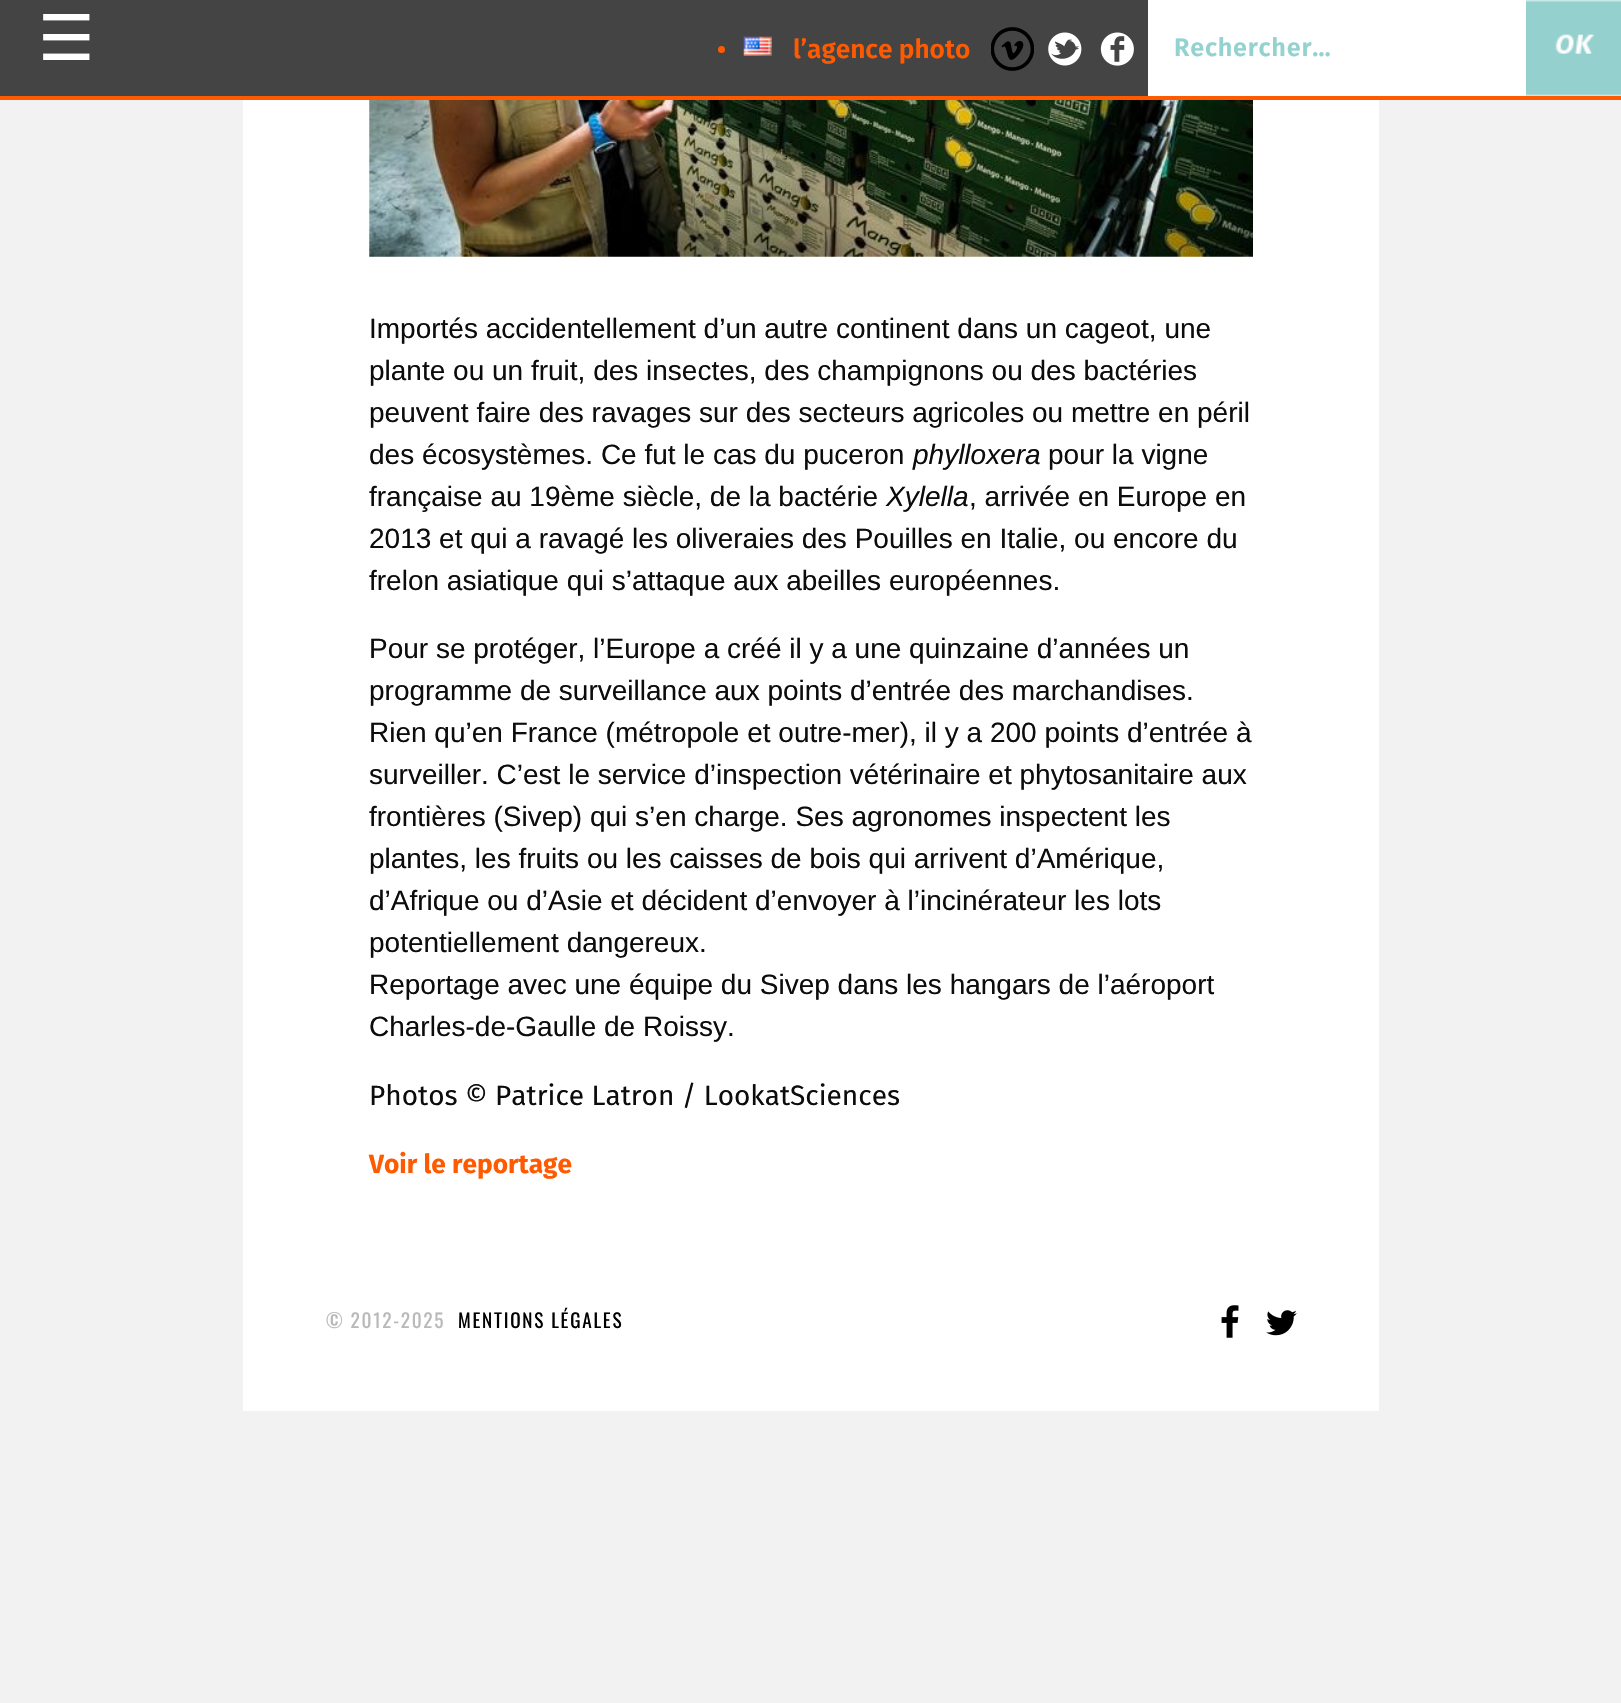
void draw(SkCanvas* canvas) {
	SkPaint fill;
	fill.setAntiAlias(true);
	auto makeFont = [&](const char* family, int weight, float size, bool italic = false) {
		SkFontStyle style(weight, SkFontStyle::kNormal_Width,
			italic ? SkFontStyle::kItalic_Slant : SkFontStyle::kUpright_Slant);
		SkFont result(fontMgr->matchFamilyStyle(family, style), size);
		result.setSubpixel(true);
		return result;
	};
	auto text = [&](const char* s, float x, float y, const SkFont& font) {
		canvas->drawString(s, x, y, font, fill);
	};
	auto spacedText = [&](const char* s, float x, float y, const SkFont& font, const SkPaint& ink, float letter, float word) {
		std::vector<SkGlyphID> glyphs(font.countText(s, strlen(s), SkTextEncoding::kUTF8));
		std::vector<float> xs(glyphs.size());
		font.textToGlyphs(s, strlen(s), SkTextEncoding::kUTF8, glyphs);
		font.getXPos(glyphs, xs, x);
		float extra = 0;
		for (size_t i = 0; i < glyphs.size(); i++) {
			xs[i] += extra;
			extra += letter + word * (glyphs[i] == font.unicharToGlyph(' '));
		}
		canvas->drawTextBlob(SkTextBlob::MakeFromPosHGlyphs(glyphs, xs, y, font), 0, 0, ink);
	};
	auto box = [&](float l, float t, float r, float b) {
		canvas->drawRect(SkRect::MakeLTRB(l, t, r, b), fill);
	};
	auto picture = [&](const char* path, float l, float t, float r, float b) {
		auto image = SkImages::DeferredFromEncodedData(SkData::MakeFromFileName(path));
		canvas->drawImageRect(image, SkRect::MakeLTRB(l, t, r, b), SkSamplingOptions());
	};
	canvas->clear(0xFFF2F2F2);
	fill.setColor(0xFF444444);
	box(0, 0, 1148, 96);
	fill.setColor(0xFFFF5A00);
	canvas->drawCircle(721.5f, 49.5f, 3.5f, fill);
	picture("image0.png", 743, 36, 772, 56);
	picture("image1.png", 991, 27, 1034, 71);
	picture("image2.png", 1048, 32, 1082, 66);
	picture("image3.png", 1100, 32, 1134, 66);
	fill.setColor(0xFFFFFFFF);
	box(1148, 0, 1526, 96);
	picture("image4.png", 1526, 0, 1621, 96);
	fill.setColor(0xFFFF5A00);
	box(0, 96, 1621, 100);
	fill.setColor(0xFFFFFFFF);
	box(243, 100, 1379, 1411);
	picture("image5.png", 369, 100, 1253, 257);
	picture("image6.png", 1221, 1305, 1239, 1338);
	picture("image7.png", 1266, 1310, 1297, 1336);
	auto font1 = makeFont("DejaVu Sans", 400, 63);
	text("☰", 38, 60, font1);
	auto font2 = makeFont("Fira Sans", 600, 26.25f);
	fill.setColor(0xFFFF5A00);
	text("l’agence photo", 793, 58, font2);
	auto font3 = makeFont("Fira Sans", 600, 25.25f);
	fill.setColor(0xFF93D2CF);
	spacedText("Rechercher…", 1174, 56, font3, fill, 0.75f, 0);
	auto font4 = makeFont("Liberation Sans", 400, 28);
	fill.setColor(0xFF0C0C0C);
	text("Importés accidentellement d’un autre continent dans un cageot, une", 369, 338, font4);
	text("plante ou un fruit, des insectes, des champignons ou des bactéries", 369, 380, font4);
	text("peuvent faire des ravages sur des secteurs agricoles ou mettre en péril", 369, 422, font4);
	text("des écosystèmes. Ce fut le cas du puceron", 369, 464, font4);
	auto font5 = makeFont("Liberation Sans", 400, 28, true);
	text("phylloxera", 913, 464, font5);
	text("pour la vigne", 1048, 464, font4);
	text("française au 19ème siècle, de la bactérie", 369, 506, font4);
	text("Xylella", 886, 506, font5);
	text(", arrivée en Europe en", 969, 506, font4);
	text("2013 et qui a ravagé les oliveraies des Pouilles en Italie, ou encore du", 369, 548, font4);
	text("frelon asiatique qui s’attaque aux abeilles européennes.", 369, 590, font4);
	text("Pour se protéger, l’Europe a créé il y a une quinzaine d’années un", 369, 658, font4);
	text("programme de surveillance aux points d’entrée des marchandises.", 369, 700, font4);
	text("Rien qu’en France (métropole et outre-mer), il y a 200 points d’entrée à", 369, 742, font4);
	text("surveiller. C’est le service d’inspection vétérinaire et phytosanitaire aux", 369, 784, font4);
	text("frontières (Sivep) qui s’en charge. Ses agronomes inspectent les", 369, 826, font4);
	text("plantes, les fruits ou les caisses de bois qui arrivent d’Amérique,", 369, 868, font4);
	text("d’Afrique ou d’Asie et décident d’envoyer à l’incinérateur les lots", 369, 910, font4);
	text("potentiellement dangereux.", 369, 952, font4);
	text("Reportage avec une équipe du Sivep dans les hangars de l’aéroport", 369, 994, font4);
	text("Charles-de-Gaulle de Roissy.", 369, 1036, font4);
	auto font6 = makeFont("Fira Sans", 400, 28);
	text("Photos © Patrice Latron / LookatSciences", 369, 1105, font6);
	auto font7 = makeFont("Fira Sans", 700, 26.25f);
	fill.setColor(0xFFFF5A00);
	text("Voir le reportage", 369, 1173, font7);
	auto font8 = makeFont("Oswald", 400, 19.25f);
	fill.setColor(0xFFB9B9B9);
	spacedText("© 2012-2025", 326, 1328, font8, fill, 1.75f, 0);
	fill.setColor(0xFF000000);
	spacedText("MENTIONS LÉGALES", 458, 1328, font8, fill, 1.75f, 0);
}
